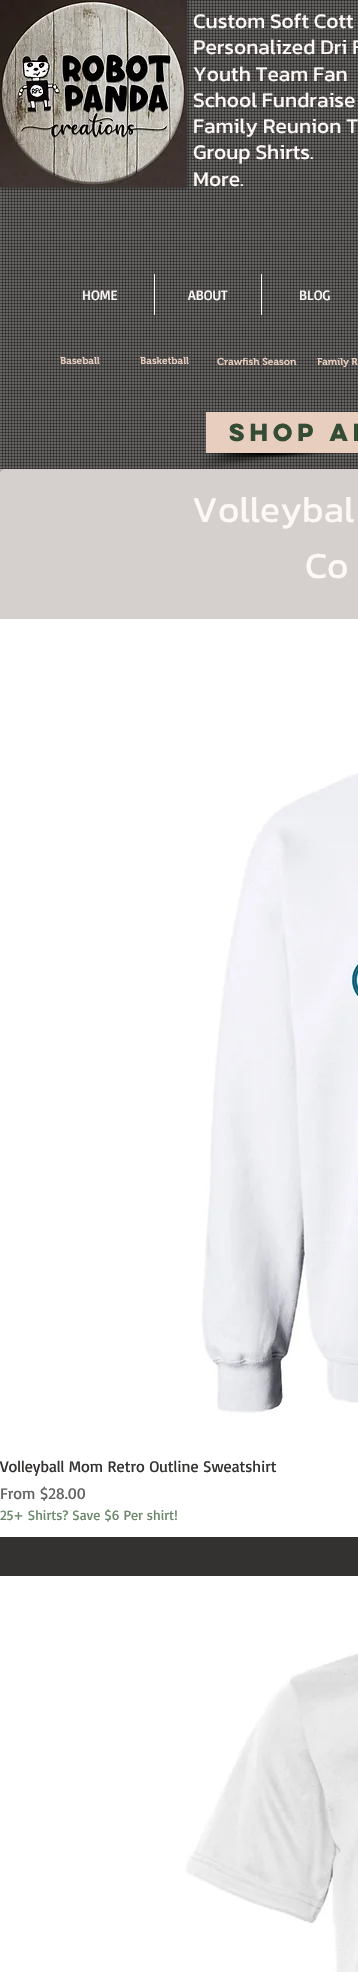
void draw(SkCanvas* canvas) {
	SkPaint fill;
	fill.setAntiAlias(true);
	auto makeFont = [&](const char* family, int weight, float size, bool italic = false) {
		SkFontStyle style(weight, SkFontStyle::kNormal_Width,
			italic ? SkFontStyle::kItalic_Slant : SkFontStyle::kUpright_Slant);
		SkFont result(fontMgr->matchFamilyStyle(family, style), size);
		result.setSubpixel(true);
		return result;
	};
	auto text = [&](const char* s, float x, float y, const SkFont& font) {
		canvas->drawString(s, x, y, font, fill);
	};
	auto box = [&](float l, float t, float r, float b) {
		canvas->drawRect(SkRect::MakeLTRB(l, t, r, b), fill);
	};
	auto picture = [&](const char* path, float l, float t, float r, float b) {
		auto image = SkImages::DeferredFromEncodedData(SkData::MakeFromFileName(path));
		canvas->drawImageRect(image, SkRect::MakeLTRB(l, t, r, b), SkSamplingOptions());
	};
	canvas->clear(0xFF656362);
	picture("image0.png", 0, 0, 358, 472);
	fill.setColor(0x80000000);
	fill.setMaskFilter(SkMaskFilter::MakeBlur(kNormal_SkBlurStyle, 1.5f));
	canvas->drawRect(SkRect::MakeLTRB(0, 1, 187, 188), fill);
	fill.setMaskFilter(nullptr);
	picture("image1.png", 0, 0, 187, 187);
	fill.setColor(0xFFFDF8F5);
	box(154, 274, 155, 315);
	box(261, 274, 262, 315);
	fill.setColor(0xFFE8CEBF);
	box(206, 412, 358, 453);
	picture("image2.png", 201, 453, 335, 468);
	fill.setColor(0xFFFDF8F5);
	canvas->drawRoundRect(SkRect::MakeLTRB(0.5f, 469.5f, 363.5f, 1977.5f), 4.5f, 4.5f, fill);
	fill.setStyle(SkPaint::kStroke_Style);
	fill.setStrokeWidth(1);
	canvas->drawRoundRect(SkRect::MakeLTRB(0.5f, 469.5f, 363.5f, 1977.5f), 4.5f, 4.5f, fill);
	fill.setStyle(SkPaint::kFill_Style);
	fill.setColor(0xCCCAC6C4);
	box(0, 469, 358, 619);
	fill.setColor(0xFFFFFFFF);
	box(0, 619, 358, 1972);
	picture("image3.png", 201, 773, 358, 1414);
	fill.setColor(0xFF333231);
	box(0, 1537, 358, 1576);
	picture("image4.png", 185, 1653, 358, 1972);
	auto font1 = makeFont("Kanit", 400, 21);
	fill.setColor(0xFFFDF8F5);
	text("Custom Soft Cott", 193, 28, font1);
	text("Personalized Dri F", 193, 54, font1);
	text("Youth Team Fan", 193, 81, font1);
	text("School Fundraise", 193, 107, font1);
	text("Family Reunion T", 193, 133, font1);
	text("Group Shirts.", 193, 159, font1);
	text("More.", 193, 186, font1);
	auto font2 = makeFont("Basic", 400, 14);
	text("HOME", 82, 300, font2);
	text("ABOUT", 188, 300, font2);
	text("BLOG", 299, 300, font2);
	auto font3 = makeFont("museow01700", 600, 10);
	fill.setColor(0xFFE8CEBF);
	text("Baseball", 60, 364, font3);
	text("Basketball", 140, 364, font3);
	text("Crawfish Season", 217, 365, font3);
	text("Family R", 317, 365, font3);
	auto font4 = makeFont("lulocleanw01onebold", 700, 22);
	fill.setColor(0xFF334C33);
	text("Shop Al", 229, 441, font4);
	auto font5 = makeFont("Kanit", 400, 37);
	fill.setColor(0xFFFDF8F5);
	text("Volleybal", 192, 522, font5);
	text("Co", 305, 578, font5);
	auto font6 = makeFont("Basic", 400, 16);
	fill.setColor(0xFF333231);
	text("Volleyball Mom Retro Outline Sweatshirt", 0, 1472, font6);
	fill.setColor(0xFF656362);
	text("From $28.00", 0, 1499, font6);
	fill.setColor(0xFF6A876A);
	text("25+ Shirts? Save $6 Per shirt!", 0, 1520, font2);
}
